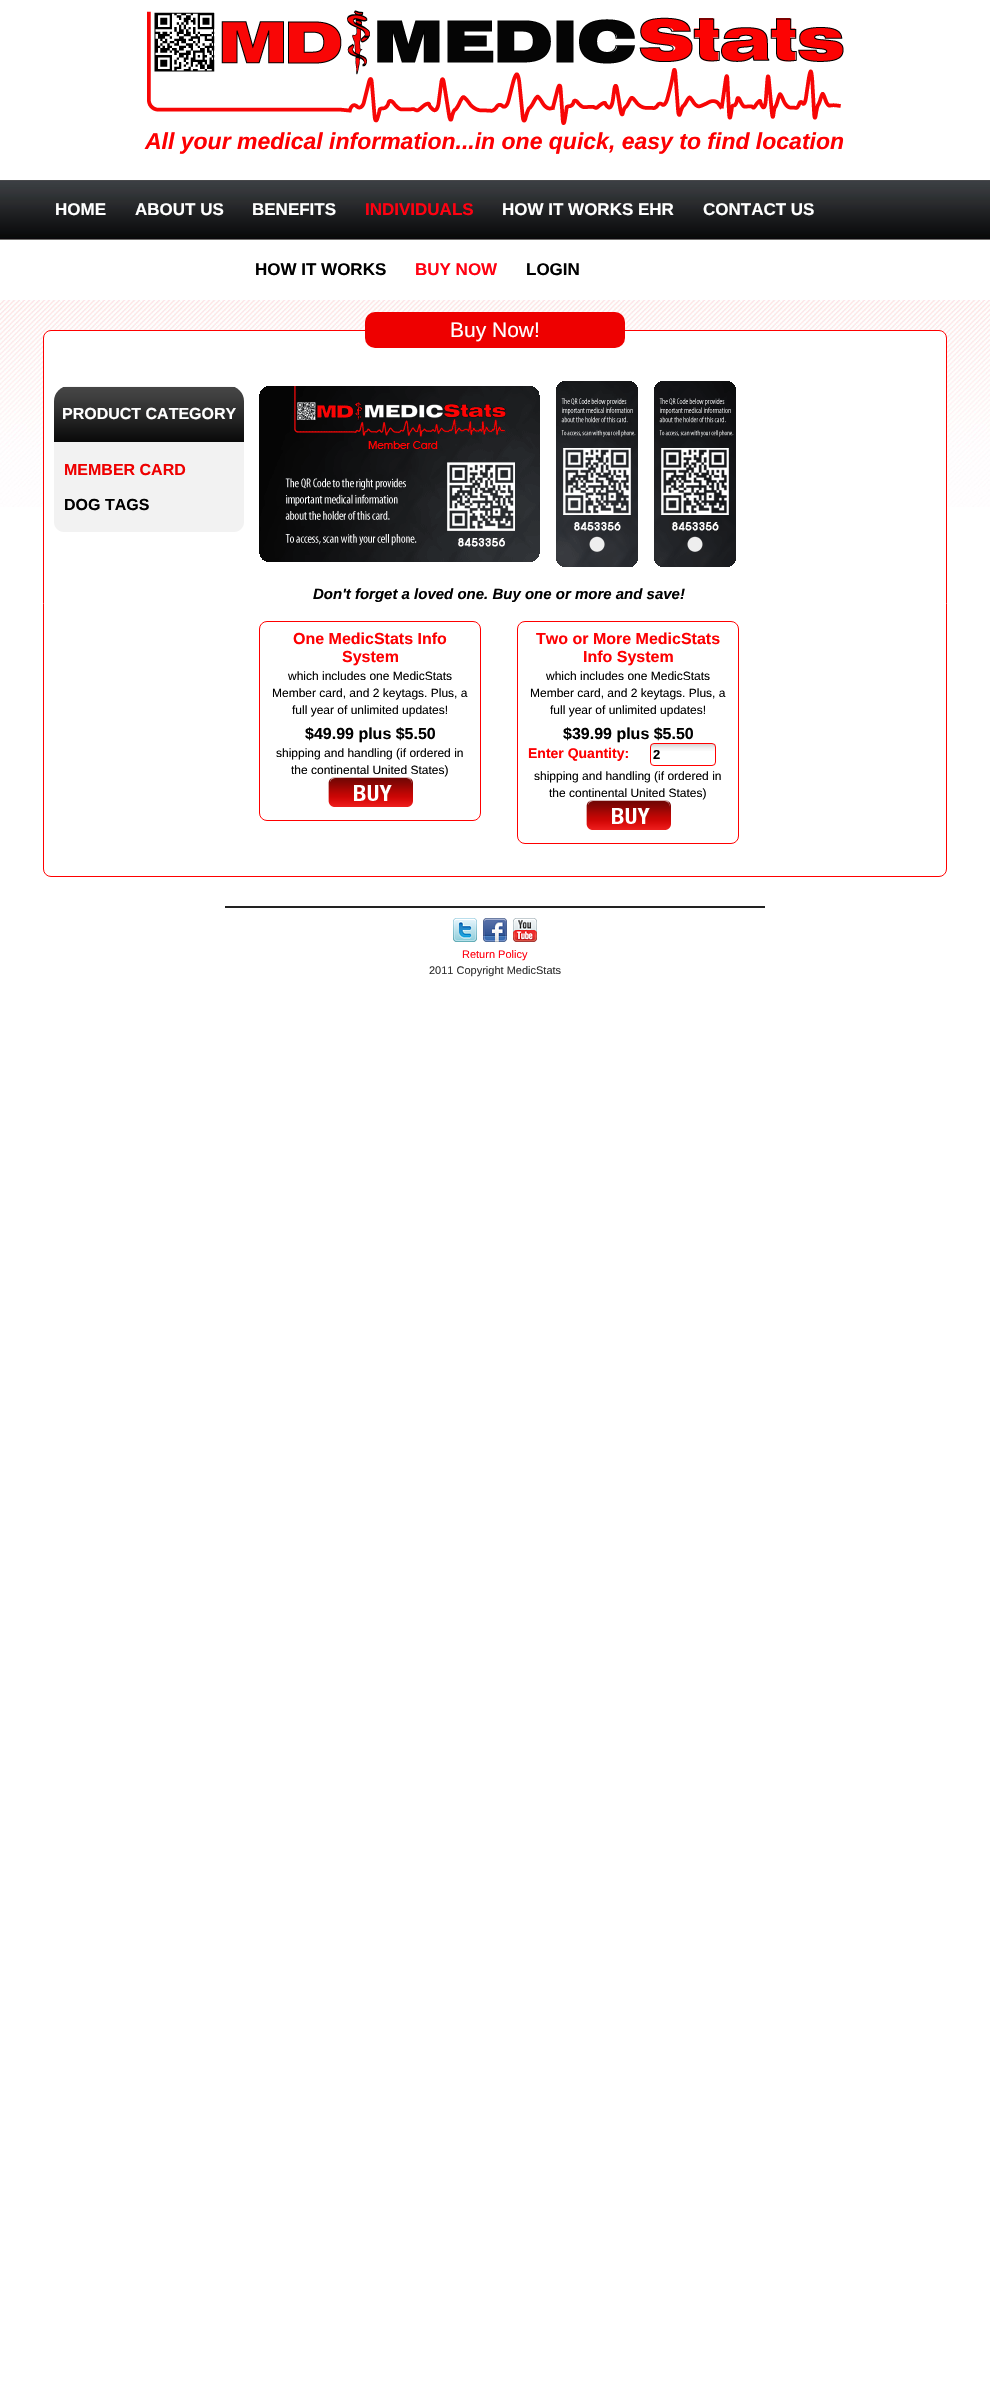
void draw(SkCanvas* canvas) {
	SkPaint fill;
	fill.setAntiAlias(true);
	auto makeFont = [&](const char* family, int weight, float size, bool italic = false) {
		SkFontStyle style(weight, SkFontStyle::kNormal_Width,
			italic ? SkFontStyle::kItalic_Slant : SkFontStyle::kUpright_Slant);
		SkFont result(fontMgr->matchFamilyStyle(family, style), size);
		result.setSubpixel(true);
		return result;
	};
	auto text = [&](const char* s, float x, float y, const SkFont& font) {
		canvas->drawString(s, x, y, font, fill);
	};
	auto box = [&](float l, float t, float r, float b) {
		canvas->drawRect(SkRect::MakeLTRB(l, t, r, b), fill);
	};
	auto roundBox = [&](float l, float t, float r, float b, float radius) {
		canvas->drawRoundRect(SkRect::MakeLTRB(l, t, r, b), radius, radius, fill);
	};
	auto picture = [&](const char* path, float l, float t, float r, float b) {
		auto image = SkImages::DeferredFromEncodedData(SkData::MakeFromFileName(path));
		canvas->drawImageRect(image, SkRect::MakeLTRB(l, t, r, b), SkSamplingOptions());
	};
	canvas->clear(0xFFFFFFFF);
	picture("image0.png", 147, 10, 844, 125);
	picture("image1.png", 0, 180, 990, 240);
	picture("image2.png", 0, 300, 990, 507);
	fill.setColor(0xFFFFFFFF);
	canvas->drawRoundRect(SkRect::MakeLTRB(43.5f, 330.5f, 946.5f, 876.5f), 7.5f, 7.5f, fill);
	fill.setStyle(SkPaint::kStroke_Style);
	fill.setStrokeWidth(1);
	fill.setColor(0xFFFF0000);
	canvas->drawRoundRect(SkRect::MakeLTRB(43.5f, 330.5f, 946.5f, 876.5f), 7.5f, 7.5f, fill);
	fill.setStyle(SkPaint::kFill_Style);
	fill.setColor(0xFFEE0000);
	roundBox(365, 312, 625, 348, 10);
	picture("image3.png", 54, 386, 244, 442);
	fill.setColor(0xFFF2F2F2);
	box(54, 442, 244, 522);
	canvas->drawPath(SkPathBuilder().moveTo(54, 522).lineTo(244, 522).cubicTo(244, 527.5f, 239.5f, 532, 234, 532).lineTo(64, 532).cubicTo(58.5f, 532, 54, 527.5f, 54, 522).close().detach(), fill);
	picture("image4.png", 259, 386, 540, 562);
	picture("image5.png", 556, 381, 638, 567);
	picture("image6.png", 654, 381, 736, 567);
	fill.setStyle(SkPaint::kStroke_Style);
	fill.setColor(0xFFFF0000);
	canvas->drawRoundRect(SkRect::MakeLTRB(259.5f, 621.5f, 480.5f, 820.5f), 7.5f, 7.5f, fill);
	picture("image7.png", 328, 777, 413, 807);
	canvas->drawRoundRect(SkRect::MakeLTRB(517.5f, 621.5f, 738.5f, 843.5f), 7.5f, 7.5f, fill);
	picture("image8.png", 650, 744, 716, 751);
	canvas->drawRoundRect(SkRect::MakeLTRB(650.5f, 743.5f, 715.5f, 765.5f), 3.5f, 3.5f, fill);
	picture("image7.png", 586, 800, 671, 830);
	fill.setStyle(SkPaint::kFill_Style);
	fill.setColor(0xFF222222);
	box(225, 906, 765, 908);
	picture("image9.png", 453, 918, 477, 942);
	picture("image10.png", 483, 918, 507, 942);
	picture("image11.png", 513, 918, 537, 942);
	auto font1 = makeFont("Liberation Sans", 700, 23, true);
	fill.setColor(0xFFFD0002);
	text("All your medical information...in one quick, easy to find location", 145, 149, font1);
	auto font2 = makeFont("Liberation Sans", 700, 17);
	fill.setColor(0xFFFFFFFF);
	text("HOME", 55, 215, font2);
	text("ABOUT US", 135, 215, font2);
	text("BENEFITS", 252, 215, font2);
	fill.setColor(0xFFFF0111);
	text("INDIVIDUALS", 365, 215, font2);
	fill.setColor(0xFFFFFFFF);
	text("HOW IT WORKS EHR", 502, 215, font2);
	text("CONTACT US", 703, 215, font2);
	fill.setColor(0xFF000000);
	text("HOW IT WORKS", 255, 275, font2);
	fill.setColor(0xFFFF0111);
	text("BUY NOW", 415, 275, font2);
	fill.setColor(0xFF000000);
	text("LOGIN", 526, 275, font2);
	auto font3 = makeFont("Liberation Sans", 400, 21);
	fill.setColor(0xFFFFFFFF);
	text("Buy Now!", 450, 337, font3);
	auto font4 = makeFont("Liberation Sans", 700, 16);
	text("PRODUCT CATEGORY", 62, 419, font4);
	fill.setColor(0xFFEE0000);
	text("MEMBER CARD", 64, 475, font4);
	fill.setColor(0xFF000000);
	text("DOG TAGS", 64, 510, font4);
	auto font5 = makeFont("Liberation Sans", 700, 15, true);
	text("Don't forget a loved one. Buy one or more and save!", 313, 599, font5);
	fill.setColor(0xFFFD0002);
	text("One MedicStats Info", 293, 644, font4);
	text("System", 342, 662, font4);
	auto font6 = makeFont("Liberation Sans", 400, 12);
	fill.setColor(0xFF000000);
	text("which includes one MedicStats", 288, 680, font6);
	text("Member card, and 2 keytags. Plus, a", 272, 697, font6);
	text("full year of unlimited updates!", 292, 714, font6);
	text("$49.99 plus $5.50", 305, 739, font4);
	text("shipping and handling (if ordered in", 276, 757, font6);
	text("the continental United States)", 291, 774, font6);
	fill.setColor(0xFFFD0002);
	text("Two or More MedicStats", 536, 644, font4);
	text("Info System", 583, 662, font4);
	fill.setColor(0xFF000000);
	text("which includes one MedicStats", 546, 680, font6);
	text("Member card, and 2 keytags. Plus, a", 530, 697, font6);
	text("full year of unlimited updates!", 550, 714, font6);
	text("$39.99 plus $5.50", 563, 739, font4);
	auto font7 = makeFont("Liberation Sans", 700, 14);
	fill.setColor(0xFFFD0002);
	text("Enter Quantity:", 528, 758, font7);
	auto font8 = makeFont("Liberation Sans", 700, 13);
	fill.setColor(0xFF000000);
	text("2", 653, 759, font8);
	text("shipping and handling (if ordered in", 534, 780, font6);
	text("the continental United States)", 549, 797, font6);
	auto font9 = makeFont("Liberation Sans", 400, 11);
	fill.setColor(0xFFFF0111);
	text("Return Policy", 462, 958, font9);
	fill.setColor(0xFF313131);
	text("2011 Copyright MedicStats", 429, 974, font9);
}
